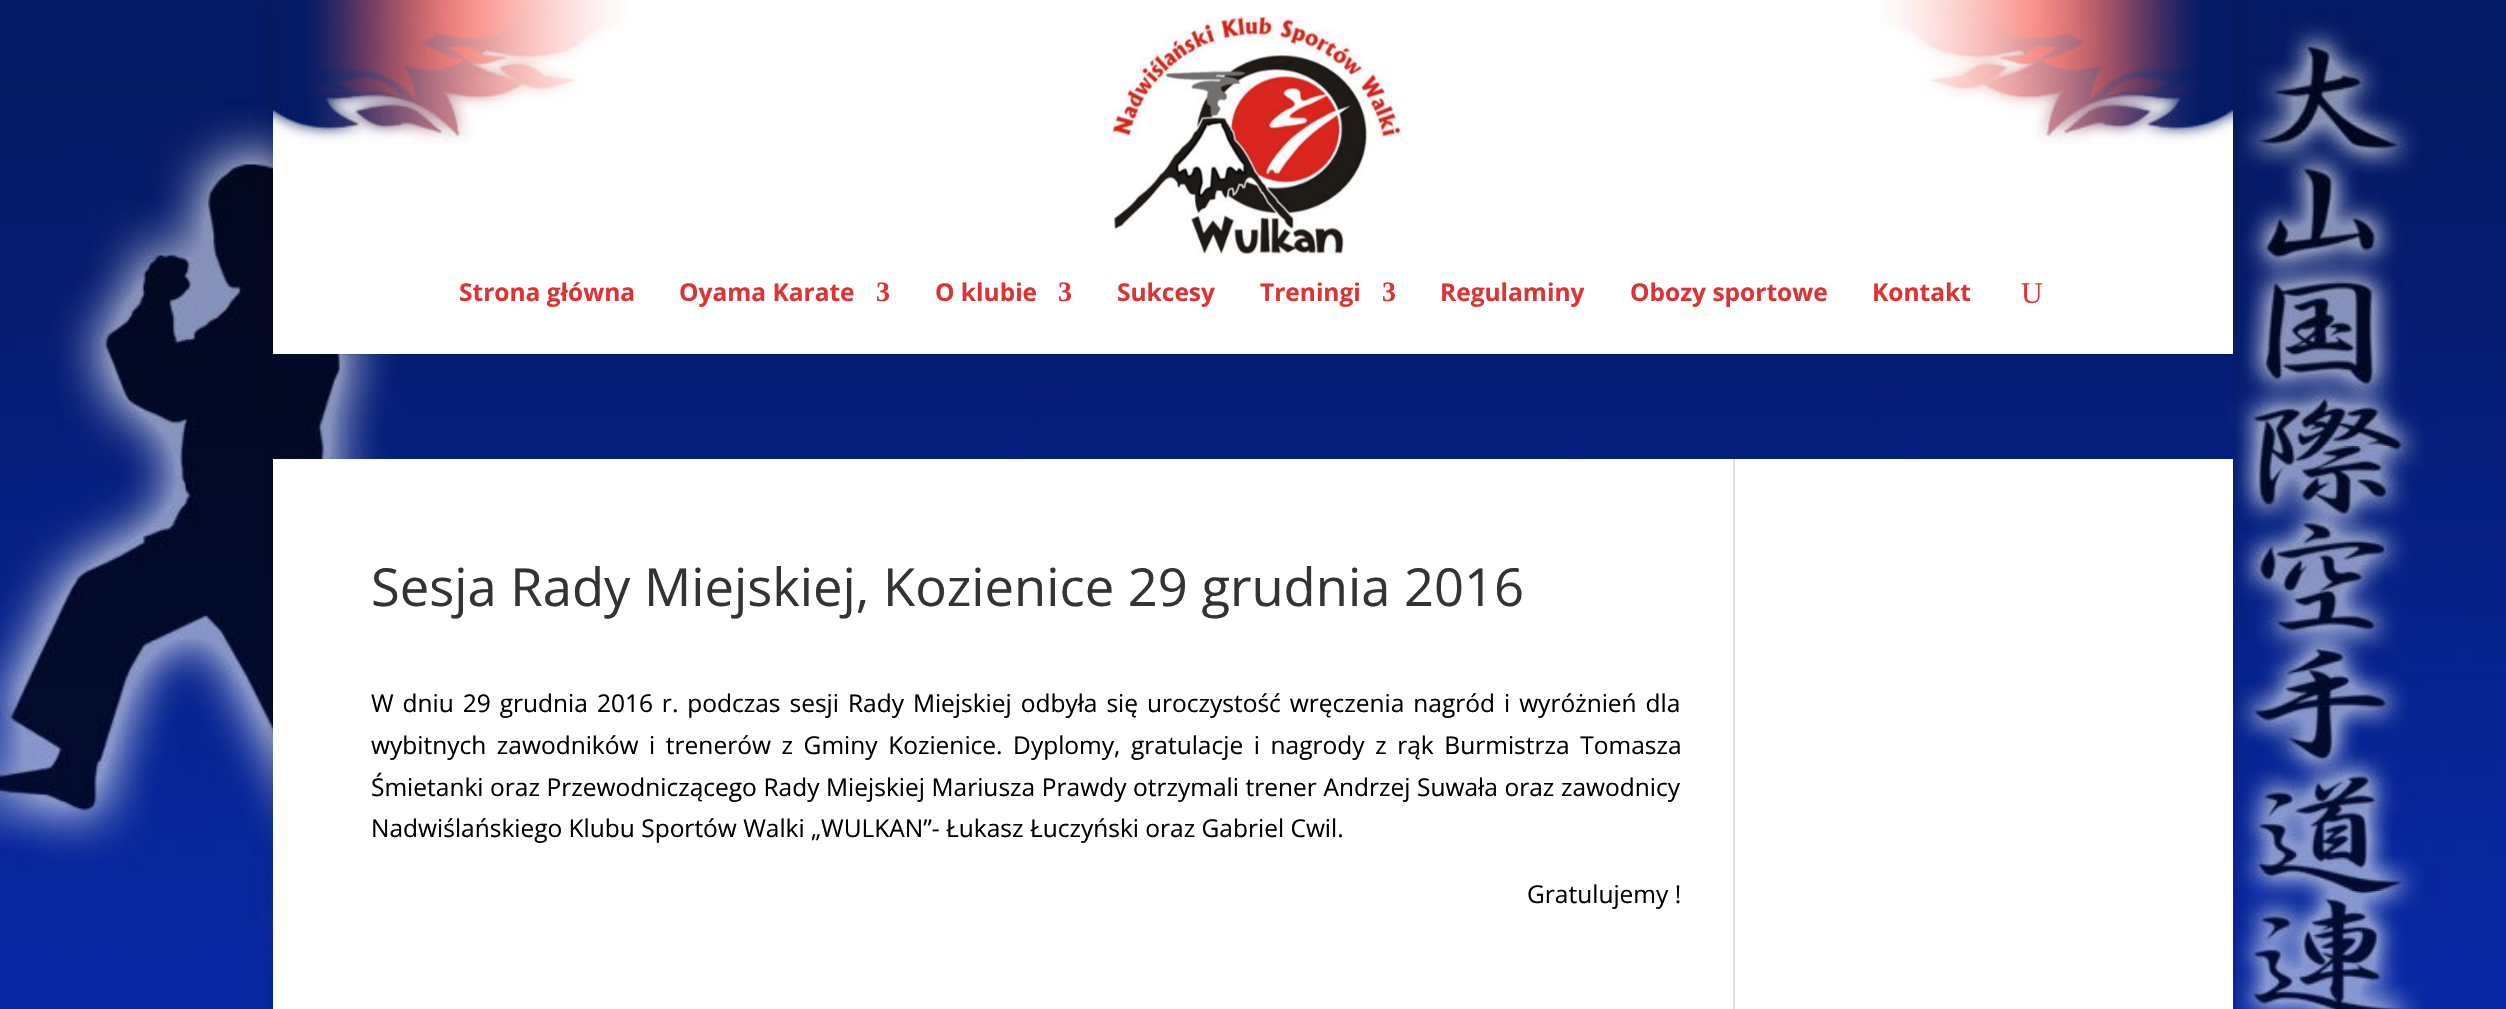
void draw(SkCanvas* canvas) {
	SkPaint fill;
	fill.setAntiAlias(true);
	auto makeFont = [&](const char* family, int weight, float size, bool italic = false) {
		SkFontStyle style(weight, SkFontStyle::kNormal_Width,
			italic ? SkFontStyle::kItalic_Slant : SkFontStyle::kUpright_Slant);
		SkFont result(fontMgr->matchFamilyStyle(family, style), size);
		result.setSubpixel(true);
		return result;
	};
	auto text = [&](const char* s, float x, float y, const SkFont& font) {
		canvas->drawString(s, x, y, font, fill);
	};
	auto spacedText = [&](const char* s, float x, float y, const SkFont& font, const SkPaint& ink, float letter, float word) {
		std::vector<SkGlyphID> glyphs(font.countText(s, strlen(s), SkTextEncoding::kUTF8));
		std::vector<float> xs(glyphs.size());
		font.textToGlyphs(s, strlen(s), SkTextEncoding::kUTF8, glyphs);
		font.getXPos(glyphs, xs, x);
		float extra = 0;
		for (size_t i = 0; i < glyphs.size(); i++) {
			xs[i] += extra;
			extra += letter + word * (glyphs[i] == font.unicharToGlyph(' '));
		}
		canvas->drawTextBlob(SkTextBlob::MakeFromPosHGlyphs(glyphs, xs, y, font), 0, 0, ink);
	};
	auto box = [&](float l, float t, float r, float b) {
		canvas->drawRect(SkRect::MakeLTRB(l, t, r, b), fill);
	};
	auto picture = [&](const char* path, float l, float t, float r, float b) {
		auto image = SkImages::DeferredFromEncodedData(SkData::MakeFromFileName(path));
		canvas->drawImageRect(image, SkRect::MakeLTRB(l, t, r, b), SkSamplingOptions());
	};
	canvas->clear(0xFFFFFFFF);
	picture("image0.png", 0, 0, 2506, 1009);
	canvas->save();
	canvas->clipPath(SkPathBuilder(SkPathFillType::kEvenOdd).moveTo(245, 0).lineTo(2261, 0).lineTo(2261, 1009).lineTo(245, 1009).close().moveTo(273, 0).lineTo(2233, 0).lineTo(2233, 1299).lineTo(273, 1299).close().detach(), true);
	fill.setColor(0x33000000);
	fill.setMaskFilter(SkMaskFilter::MakeBlur(kNormal_SkBlurStyle, 9));
	canvas->drawRect(SkRect::MakeLTRB(273, 0, 2233, 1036), fill);
	fill.setMaskFilter(nullptr);
	canvas->restore();
	fill.setColor(0x1A000000);
	box(273, 354, 2233, 355);
	fill.setColor(0xFFFFFFFF);
	box(273, 144, 2233, 354);
	picture("image1.png", 273, 0, 2233, 144);
	picture("image2.png", 1112, 17, 1401, 255);
	box(273, 459, 2233, 1009);
	fill.setColor(0xFFE2E2E2);
	box(1733, 459, 1735, 1009);
	auto font1 = makeFont("Open Sans", 700, 24.5f);
	fill.setColor(0xFFDD3333);
	text("Strona główna", 459, 301, font1);
	text("Oyama Karate", 679, 301, font1);
	auto font2 = makeFont("Liberation Serif", 700, 28);
	text("3", 876, 301, font2);
	text("O klubie", 935, 301, font1);
	text("3", 1058, 301, font2);
	text("Sukcesy", 1117, 301, font1);
	text("Treningi", 1260, 301, font1);
	text("3", 1382, 301, font2);
	text("Regulaminy", 1440, 301, font1);
	text("Obozy sportowe", 1630, 301, font1);
	text("Kontakt", 1872, 301, font1);
	auto font3 = makeFont("Liberation Serif", 400, 30);
	text("U", 2021, 303, font3);
	auto font4 = makeFont("Open Sans", 400, 52.5f);
	fill.setColor(0xFF333333);
	text("Sesja Rady Miejskiej, Kozienice 29 grudnia 2016", 371, 606, font4);
	auto font5 = makeFont("Open Sans", 400, 24.5f);
	fill.setColor(0xFF000000);
	spacedText("W dniu 29 grudnia 2016 r. podczas sesji Rady Miejskiej odbyła się uroczystość wręczenia nagród i wyróżnień dla", 371, 712, font5, fill, 0, 2.6f);
	spacedText("wybitnych zawodników i trenerów z Gminy Kozienice. Dyplomy, gratulacje i nagrody z rąk Burmistrza Tomasza", 371, 754, font5, fill, 0, 4.25f);
	spacedText("Śmietanki oraz Przewodniczącego Rady Miejskiej Mariusza Prawdy otrzymali trener Andrzej Suwała oraz zawodnicy", 371, 796, font5, fill, 0, 0.25f);
	text("Nadwiślańskiego Klubu Sportów Walki „WULKAN”- Łukasz Łuczyński oraz Gabriel Cwil.", 371, 837, font5);
	text("Gratulujemy !", 1527, 903, font5);
}
